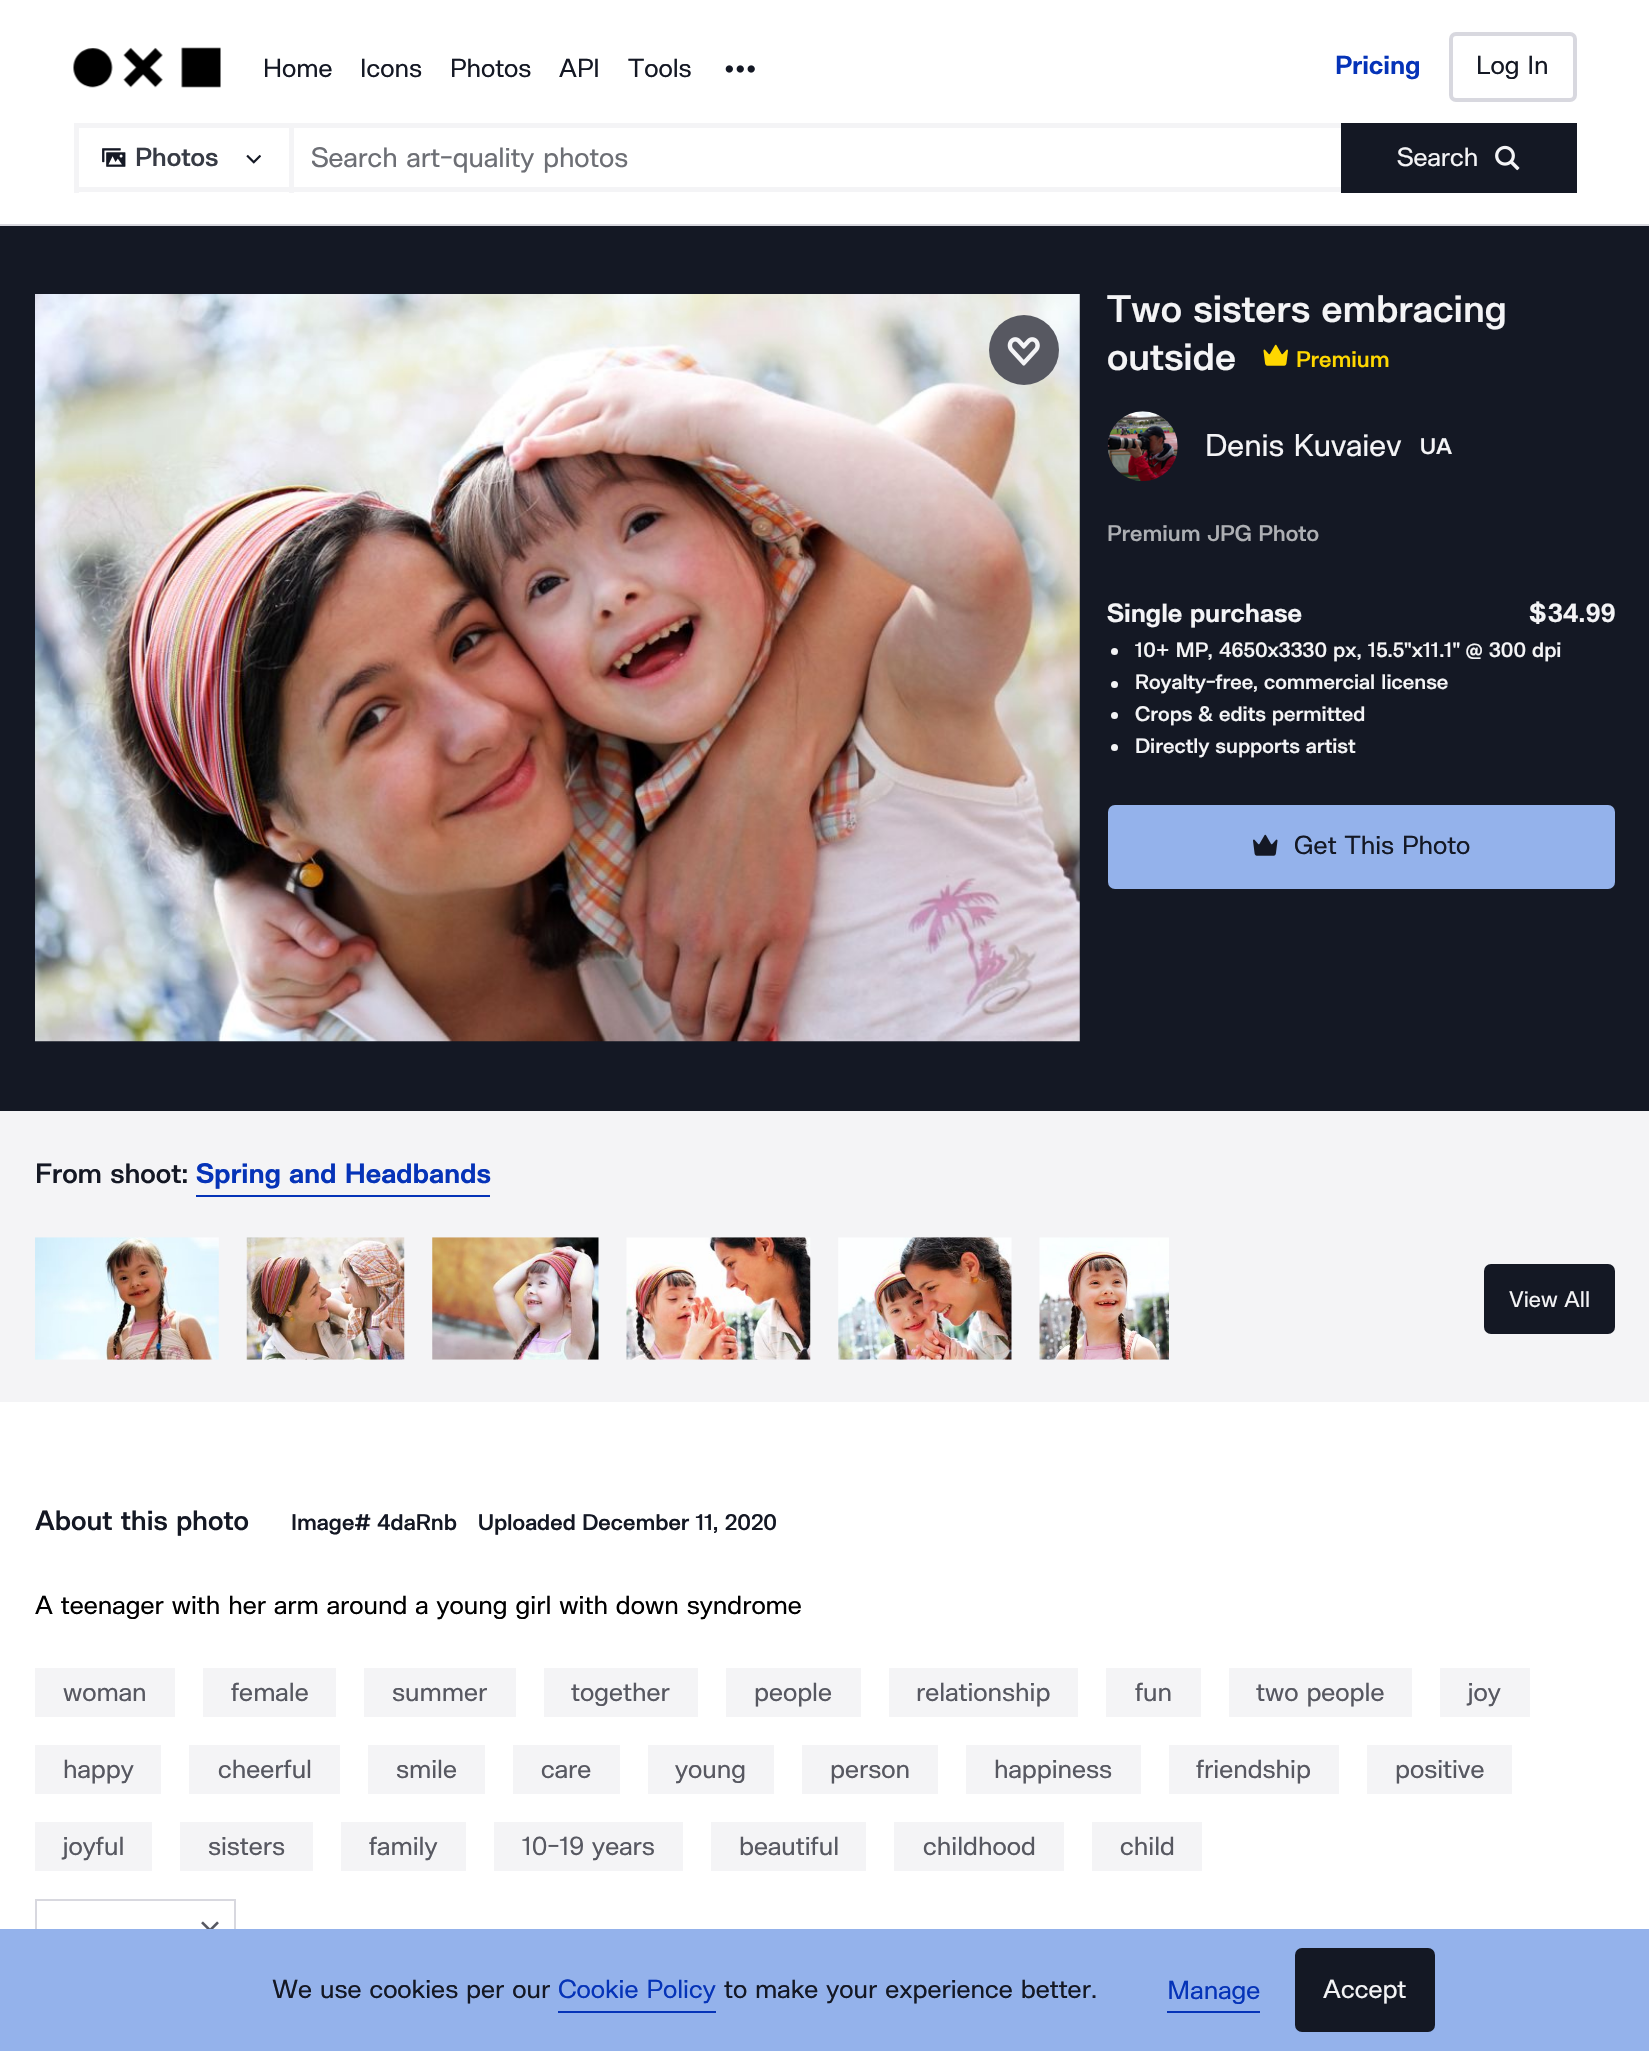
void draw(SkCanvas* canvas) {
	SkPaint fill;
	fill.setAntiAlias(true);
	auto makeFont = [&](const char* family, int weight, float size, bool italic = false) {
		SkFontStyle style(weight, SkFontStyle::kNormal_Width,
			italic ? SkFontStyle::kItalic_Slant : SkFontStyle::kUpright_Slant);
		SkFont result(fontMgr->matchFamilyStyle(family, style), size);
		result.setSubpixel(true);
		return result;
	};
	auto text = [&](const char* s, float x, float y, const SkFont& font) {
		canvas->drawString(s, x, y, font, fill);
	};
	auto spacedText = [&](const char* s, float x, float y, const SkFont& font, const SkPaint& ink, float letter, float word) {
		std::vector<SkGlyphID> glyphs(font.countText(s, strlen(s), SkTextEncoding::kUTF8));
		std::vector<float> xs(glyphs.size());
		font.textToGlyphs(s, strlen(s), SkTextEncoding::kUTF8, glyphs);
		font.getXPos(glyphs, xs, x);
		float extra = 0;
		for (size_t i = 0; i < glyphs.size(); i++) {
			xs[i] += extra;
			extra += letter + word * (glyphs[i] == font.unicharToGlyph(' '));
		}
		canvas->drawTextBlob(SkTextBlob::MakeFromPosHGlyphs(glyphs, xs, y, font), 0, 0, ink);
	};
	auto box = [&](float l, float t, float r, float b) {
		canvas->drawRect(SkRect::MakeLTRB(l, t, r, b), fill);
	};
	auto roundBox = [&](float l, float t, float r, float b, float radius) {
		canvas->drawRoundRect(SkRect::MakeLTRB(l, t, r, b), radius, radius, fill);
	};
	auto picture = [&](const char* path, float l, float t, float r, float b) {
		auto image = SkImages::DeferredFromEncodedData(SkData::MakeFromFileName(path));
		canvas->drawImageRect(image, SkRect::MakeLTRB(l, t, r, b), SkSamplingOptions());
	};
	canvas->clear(0xFFFFFFFF);
	fill.setColor(0xFFD8D8DF);
	box(0, 224, 1649, 226);
	picture("image0.png", 73, 47, 221, 88);
	picture("image1.png", 725, 65, 755, 73);
	fill.setStyle(SkPaint::kStroke_Style);
	fill.setStrokeWidth(4);
	canvas->drawRoundRect(SkRect::MakeLTRB(1451, 34, 1575, 100), 5, 5, fill);
	fill.setStyle(SkPaint::kFill_Style);
	fill.setColor(0xFFF4F4F6);
	box(74, 123, 289, 128);
	box(74, 187, 289, 192);
	box(74, 123, 79, 193);
	picture("image2.png", 102, 148, 126, 167);
	picture("image3.png", 246, 154, 261, 164);
	box(289, 123, 294, 193);
	box(294, 123, 1341, 128);
	box(294, 187, 1341, 192);
	fill.setColor(0xFF141824);
	box(1341, 123, 1577, 193);
	picture("image4.png", 1495, 145, 1520, 171);
	box(0, 226, 1649, 1111);
	picture("image5.png", 35, 294, 1080, 1042);
	fill.setColor(0xFF575861);
	canvas->drawCircle(1024, 350, 35, fill);
	picture("image6.png", 1007, 337, 1040, 366);
	picture("image7.png", 1263, 344, 1288, 366);
	picture("image8.png", 1107, 411, 1178, 481);
	fill.setColor(0xFFF4F4F6);
	canvas->drawCircle(1114.5f, 651.5f, 3.5f, fill);
	canvas->drawCircle(1114.5f, 684.5f, 3.5f, fill);
	canvas->drawCircle(1114.5f, 715.5f, 3.5f, fill);
	canvas->drawCircle(1114.5f, 747.5f, 3.5f, fill);
	fill.setColor(0xFF94B2EB);
	roundBox(1108, 805, 1615, 889, 7);
	picture("image9.png", 1253, 834, 1278, 856);
	fill.setColor(0xFFF4F4F6);
	box(0, 1111, 1649, 1402);
	fill.setColor(0xFF0533B8);
	box(196, 1195, 490, 1197);
	picture("image10.png", 35, 1237, 219, 1360);
	picture("image11.png", 246, 1237, 405, 1360);
	picture("image12.png", 432, 1237, 599, 1360);
	picture("image13.png", 626, 1237, 811, 1360);
	picture("image14.png", 838, 1237, 1012, 1360);
	picture("image15.png", 1039, 1237, 1169, 1360);
	fill.setColor(0xFF141824);
	roundBox(1484, 1264, 1615, 1334, 7);
	fill.setColor(0xFFF4F4F6);
	box(35, 1668, 175, 1717);
	box(203, 1668, 336, 1717);
	box(364, 1668, 516, 1717);
	box(544, 1668, 698, 1717);
	box(726, 1668, 861, 1717);
	box(889, 1668, 1078, 1717);
	box(1106, 1668, 1201, 1717);
	box(1229, 1668, 1412, 1717);
	box(1440, 1668, 1530, 1717);
	box(35, 1745, 161, 1794);
	box(189, 1745, 340, 1794);
	box(368, 1745, 485, 1794);
	box(513, 1745, 620, 1794);
	box(648, 1745, 774, 1794);
	box(802, 1745, 938, 1794);
	box(966, 1745, 1141, 1794);
	box(1169, 1745, 1339, 1794);
	box(1367, 1745, 1512, 1794);
	box(35, 1822, 152, 1871);
	box(180, 1822, 313, 1871);
	box(341, 1822, 466, 1871);
	box(494, 1822, 683, 1871);
	box(711, 1822, 866, 1871);
	box(894, 1822, 1064, 1871);
	box(1092, 1822, 1202, 1871);
	fill.setStyle(SkPaint::kStroke_Style);
	fill.setStrokeWidth(2);
	fill.setColor(0xFFD8D8DF);
	canvas->drawRect(SkRect::MakeLTRB(36, 1900, 235, 1952), fill);
	picture("image16.png", 201, 1921, 219, 1929);
	fill.setStyle(SkPaint::kFill_Style);
	fill.setColor(0xFF94B2EB);
	box(0, 1929, 1649, 2051);
	fill.setColor(0xFF0533B8);
	box(558, 2011, 716, 2013);
	box(1167, 2011, 1260, 2013);
	fill.setColor(0xFF141824);
	roundBox(1295, 1948, 1435, 2032, 7);
	auto font1 = makeFont("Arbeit", 400, 26.25f);
	text("Home", 263, 77, font1);
	text("Icons", 360, 77, font1);
	text("Photos", 450, 77, font1);
	text("API", 559, 77, font1);
	text("Tools", 628, 77, font1);
	auto font2 = makeFont("Arbeit", 700, 26.25f);
	fill.setColor(0xFF0533B8);
	text("Pricing", 1335, 74, font2);
	fill.setColor(0xFF141824);
	spacedText("Log In", 1476, 74, font1, fill, 0, 2.6f);
	auto font3 = makeFont("Arbeit", 600, 26.25f);
	fill.setColor(0xFF373B45);
	text("Photos", 135, 166, font3);
	canvas->save();
	canvas->clipRect(SkRect::MakeLTRB(312, 142, 1297, 175));
	auto font4 = makeFont("Arbeit", 400, 28);
	fill.setColor(0xFF6D6F75);
	spacedText("Search art-quality photos", 311, 167, font4, fill, 0, 3);
	canvas->restore();
	fill.setColor(0xFFF4F4F6);
	text("Search", 1397, 166, font1);
	auto font5 = makeFont("Arbeit", 600, 38.5f);
	spacedText("Two sisters embracing", 1107, 322, font5, fill, 0, 4);
	text("outside", 1107, 370, font5);
	auto font6 = makeFont("Arbeit", 600, 22.75f);
	fill.setColor(0xFFFFD700);
	text("Premium", 1296, 367, font6);
	auto font7 = makeFont("Arbeit", 400, 31.5f);
	fill.setColor(0xFFF4F4F6);
	spacedText("Denis Kuvaiev", 1205, 456, font7, fill, 0, 3);
	text("UA", 1420, 454, font6);
	fill.setColor(0xFFADAFB3);
	spacedText("Premium JPG Photo", 1107, 541, font6, fill, 0, 2);
	fill.setColor(0xFFF4F4F6);
	spacedText("Single purchase", 1107, 622, font2, fill, 0, 2.6f);
	text("$34.99", 1530, 622, font2);
	auto font8 = makeFont("Arbeit", 600, 21);
	spacedText("10+ MP", 1135, 657, font8, fill, 0, 2);
	spacedText("4650x3330 px", 1219, 657, font8, fill, 0, 2);
	text("15.5\"x11.1\"", 1368, 657, font8);
	text("@", 1466, 657, font8);
	spacedText("300 dpi", 1489, 657, font8, fill, 0, 2);
	text(",", 1208, 657, font8);
	text(",", 1357, 657, font8);
	spacedText("Royalty-free, commercial license", 1135, 689, font8, fill, 0, 2);
	spacedText("Crops & edits permitted", 1135, 721, font8, fill, 0, 2);
	spacedText("Directly supports artist", 1135, 753, font8, fill, 0, 2);
	fill.setColor(0xFF141824);
	spacedText("Get This Photo", 1294, 854, font1, fill, 0, 2.6f);
	auto font9 = makeFont("Arbeit", 600, 28);
	spacedText("From shoot:", 35, 1183, font9, fill, 0, 3);
	auto font10 = makeFont("Arbeit", 700, 28);
	fill.setColor(0xFF0533B8);
	spacedText("Spring and Headbands", 196, 1183, font10, fill, 0, 3);
	auto font11 = makeFont("Arbeit", 400, 22.75f);
	fill.setColor(0xFFF4F4F6);
	spacedText("View All", 1509, 1307, font11, fill, 0, 2);
	fill.setColor(0xFF141824);
	spacedText("About this photo", 35, 1530, font9, fill, 0, 3);
	text("Image#", 291, 1530, font6);
	text("4daRnb", 377, 1530, font6);
	text("Uploaded", 478, 1530, font6);
	spacedText("December 11, 2020", 582, 1530, font6, fill, 0, 2);
	fill.setColor(0xFF000000);
	spacedText("A teenager with her arm around a young girl with down syndrome", 35, 1614, font1, fill, 0, 2.6f);
	fill.setColor(0xFF575861);
	text("woman", 63, 1701, font1);
	text("female", 231, 1701, font1);
	text("summer", 392, 1701, font1);
	text("together", 571, 1701, font1);
	text("people", 754, 1701, font1);
	text("relationship", 916, 1701, font1);
	text("fun", 1135, 1701, font1);
	spacedText("two people", 1256, 1701, font1, fill, 0, 2.6f);
	text("joy", 1468, 1701, font1);
	text("happy", 63, 1778, font1);
	text("cheerful", 218, 1778, font1);
	text("smile", 396, 1778, font1);
	text("care", 541, 1778, font1);
	text("young", 675, 1778, font1);
	text("person", 830, 1778, font1);
	text("happiness", 994, 1778, font1);
	text("friendship", 1196, 1778, font1);
	text("positive", 1395, 1778, font1);
	text("joyful", 63, 1855, font1);
	text("sisters", 208, 1855, font1);
	text("family", 369, 1855, font1);
	spacedText("10-19 years", 522, 1855, font1, fill, 0, 2.6f);
	text("beautiful", 739, 1855, font1);
	text("childhood", 923, 1855, font1);
	text("child", 1120, 1855, font1);
	fill.setColor(0xFF141824);
	spacedText("We use cookies per our", 272, 1998, font1, fill, 0, 2.6f);
	fill.setColor(0xFF0533B8);
	spacedText("Cookie Policy", 558, 1998, font1, fill, 0, 2.6f);
	fill.setColor(0xFF141824);
	spacedText("to make your experience better.", 724, 1998, font1, fill, 0, 2.6f);
	fill.setColor(0xFF0533B8);
	text("Manage", 1167, 1999, font1);
	fill.setColor(0xFFF4F4F6);
	text("Accept", 1323, 1998, font1);
}
